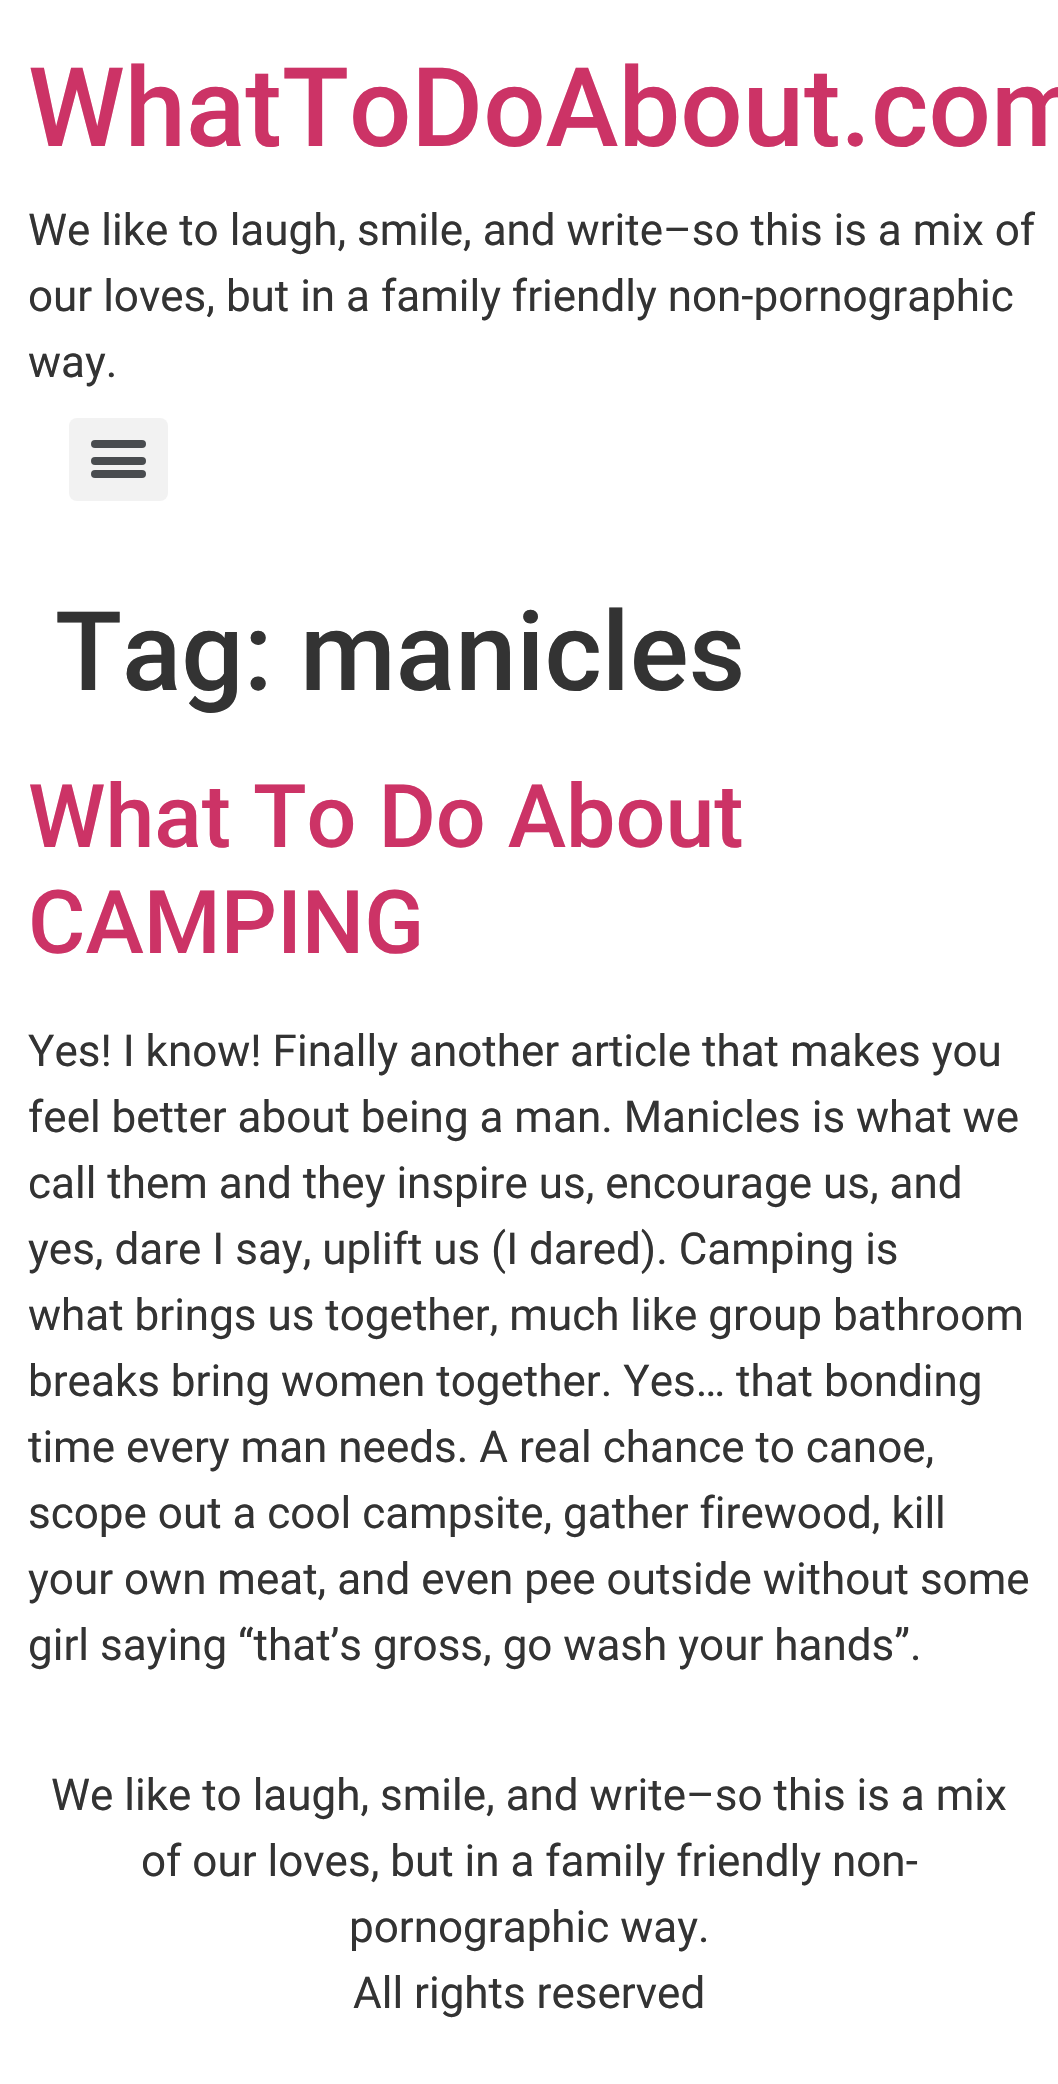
void draw(SkCanvas* canvas) {
	SkPaint fill;
	fill.setAntiAlias(true);
	auto makeFont = [&](const char* family, int weight, float size, bool italic = false) {
		SkFontStyle style(weight, SkFontStyle::kNormal_Width,
			italic ? SkFontStyle::kItalic_Slant : SkFontStyle::kUpright_Slant);
		SkFont result(fontMgr->matchFamilyStyle(family, style), size);
		result.setSubpixel(true);
		return result;
	};
	auto text = [&](const char* s, float x, float y, const SkFont& font) {
		canvas->drawString(s, x, y, font, fill);
	};
	auto roundBox = [&](float l, float t, float r, float b, float radius) {
		canvas->drawRoundRect(SkRect::MakeLTRB(l, t, r, b), radius, radius, fill);
	};
	canvas->clear(0xFFFFFFFF);
	fill.setColor(0xFFF2F2F2);
	roundBox(69, 418, 168, 501, 8);
	fill.setColor(0xFF494C4F);
	roundBox(91, 457, 146, 465, 4);
	roundBox(91, 440, 146, 448, 4);
	roundBox(91, 470, 146, 478, 4);
	auto font1 = makeFont("Roboto", 500, 110);
	fill.setColor(0xFFCC3366);
	text("WhatToDoAbout.com", 28, 146, font1);
	auto font2 = makeFont("Roboto", 400, 44);
	fill.setColor(0xFF333333);
	text("We like to laugh, smile, and write–so this is a mix of", 28, 245, font2);
	text("our loves, but in a family friendly non-pornographic", 28, 311, font2);
	text("way.", 28, 377, font2);
	text("Tag: manicles", 55, 690, font1);
	auto font3 = makeFont("Roboto", 500, 88);
	fill.setColor(0xFFCC3366);
	text("What To Do About", 28, 847, font3);
	text("CAMPING", 28, 953, font3);
	fill.setColor(0xFF333333);
	text("Yes! I know! Finally another article that makes you", 28, 1066, font2);
	text("feel better about being a man. Manicles is what we", 28, 1132, font2);
	text("call them and they inspire us, encourage us, and", 28, 1198, font2);
	text("yes, dare I say, uplift us (I dared). Camping is", 28, 1264, font2);
	text("what brings us together, much like group bathroom", 28, 1330, font2);
	text("breaks bring women together. Yes… that bonding", 28, 1396, font2);
	text("time every man needs. A real chance to canoe,", 28, 1462, font2);
	text("scope out a cool campsite, gather firewood, kill", 28, 1528, font2);
	text("your own meat, and even pee outside without some", 28, 1594, font2);
	text("girl saying “that’s gross, go wash your hands”.", 28, 1660, font2);
	text("We like to laugh, smile, and write–so this is a mix", 51, 1810, font2);
	text("of our loves, but in a family friendly non-", 141, 1876, font2);
	text("pornographic way.", 349, 1942, font2);
	text("All rights reserved", 353, 2008, font2);
}
